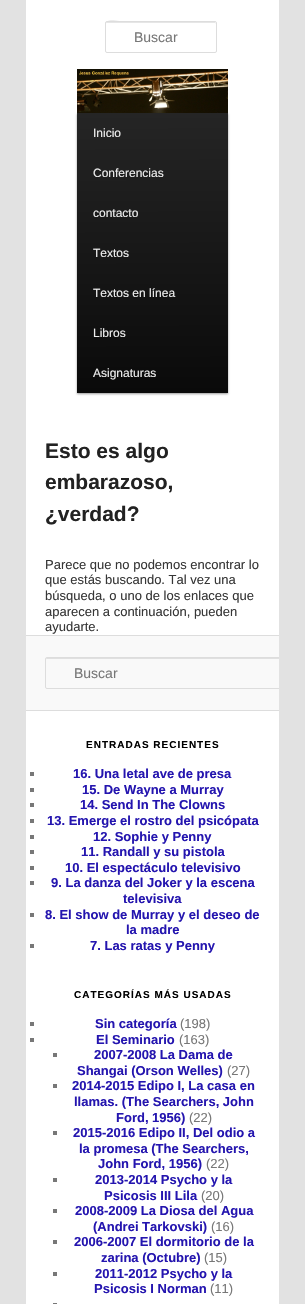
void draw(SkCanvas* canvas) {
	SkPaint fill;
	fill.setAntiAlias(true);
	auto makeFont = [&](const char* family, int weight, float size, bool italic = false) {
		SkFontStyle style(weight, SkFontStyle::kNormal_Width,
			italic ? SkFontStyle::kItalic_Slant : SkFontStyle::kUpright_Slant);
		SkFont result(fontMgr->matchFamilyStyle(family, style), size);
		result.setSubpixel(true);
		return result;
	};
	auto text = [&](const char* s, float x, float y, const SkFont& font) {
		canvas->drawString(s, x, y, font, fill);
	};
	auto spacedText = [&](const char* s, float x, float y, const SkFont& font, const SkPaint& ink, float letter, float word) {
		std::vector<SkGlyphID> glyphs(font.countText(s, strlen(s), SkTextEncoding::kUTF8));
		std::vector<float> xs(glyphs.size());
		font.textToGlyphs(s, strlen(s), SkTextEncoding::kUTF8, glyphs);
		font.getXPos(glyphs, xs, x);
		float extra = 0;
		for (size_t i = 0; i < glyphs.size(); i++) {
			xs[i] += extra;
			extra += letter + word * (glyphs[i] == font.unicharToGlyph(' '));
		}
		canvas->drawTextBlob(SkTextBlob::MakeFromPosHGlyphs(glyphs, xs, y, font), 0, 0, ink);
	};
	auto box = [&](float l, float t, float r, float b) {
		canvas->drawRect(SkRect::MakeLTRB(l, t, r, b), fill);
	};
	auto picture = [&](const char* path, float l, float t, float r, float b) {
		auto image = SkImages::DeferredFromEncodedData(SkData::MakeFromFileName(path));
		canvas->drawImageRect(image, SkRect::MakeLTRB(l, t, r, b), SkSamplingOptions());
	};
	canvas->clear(0xFFE2E2E2);
	fill.setColor(0xFFFFFFFF);
	box(26, 0, 279, 1304);
	fill.setColor(0xFFE6E6E6);
	canvas->drawPath(SkPathBuilder().moveTo(107, 23).lineTo(216, 23).lineTo(216, 24).lineTo(215, 22).lineTo(125, 22).cubicTo(121, 22, 106, 17, 106, 24).cubicTo(106, 23, 106, 23, 107, 23).close().detach(), fill);
	fill.setStyle(SkPaint::kStroke_Style);
	fill.setStrokeWidth(1);
	fill.setColor(0xFFDDDDDD);
	canvas->drawRoundRect(SkRect::MakeLTRB(105.5f, 21.5f, 216.5f, 52.5f), 1.5f, 1.5f, fill);
	fill.setStyle(SkPaint::kFill_Style);
	fill.setColor(0x66000000);
	fill.setMaskFilter(SkMaskFilter::MakeBlur(kNormal_SkBlurStyle, 1));
	canvas->drawRect(SkRect::MakeLTRB(77, 114, 228, 394), fill);
	fill.setMaskFilter(nullptr);
	picture("image0.png", 77, 69, 228, 113);
	{
		const SkColor colors[] = {0xFF252525, 0xFF0A0A0A};
		const float stops[] = {0, 1};
		const SkPoint ends[] = {{152, 113}, {153, 393}};
		fill.setShader(SkGradientShader::MakeLinear(ends, colors, stops, 2, SkTileMode::kClamp));
		fill.setAlpha(255);
	}
	box(77, 113, 228, 393);
	fill.setShader(nullptr);
	fill.setColor(0xFFF9F9F9);
	box(26, 636, 279, 710);
	fill.setColor(0xFFDDDDDD);
	box(26, 635, 279, 636);
	box(26, 710, 279, 711);
	canvas->save();
	canvas->clipRect(SkRect::MakeLTRB(26, 636, 279, 710));
	fill.setColor(0xFFE0E0E0);
	canvas->drawPath(SkPathBuilder().moveTo(47, 659).lineTo(288, 659).lineTo(288, 660).cubicTo(288, 659, 288, 658, 287, 658).lineTo(47, 658).cubicTo(46, 658, 46, 659, 46, 660).cubicTo(46, 659, 46, 659, 47, 659).close().detach(), fill);
	fill.setStyle(SkPaint::kStroke_Style);
	fill.setColor(0xFFDDDDDD);
	canvas->drawRoundRect(SkRect::MakeLTRB(45.5f, 657.5f, 288.5f, 688.5f), 1.5f, 1.5f, fill);
	canvas->restore();
	fill.setStyle(SkPaint::kFill_Style);
	fill.setColor(0xFF777777);
	box(30, 772, 34, 776);
	box(30, 788, 34, 792);
	box(30, 803, 34, 807);
	box(30, 819, 34, 823);
	box(30, 835, 34, 839);
	box(30, 850, 34, 854);
	box(30, 866, 34, 870);
	box(30, 881, 34, 885);
	box(30, 913, 34, 917);
	box(30, 944, 34, 948);
	box(30, 1022, 34, 1026);
	box(30, 1038, 34, 1042);
	box(53, 1053, 57, 1057);
	box(53, 1084, 57, 1088);
	box(53, 1131, 57, 1135);
	box(53, 1178, 57, 1182);
	box(53, 1209, 57, 1213);
	box(53, 1240, 57, 1244);
	box(53, 1272, 57, 1276);
	box(53, 1303, 57, 1304);
	auto font1 = makeFont("Liberation Sans", 400, 14);
	text("Buscar", 134, 42, font1);
	auto font2 = makeFont("Liberation Sans", 400, 12);
	fill.setColor(0xFFEEEEEE);
	text("Inicio", 93, 137, font2);
	text("Conferencias", 93, 177, font2);
	text("contacto", 93, 217, font2);
	text("Textos", 93, 257, font2);
	text("Textos en línea", 93, 297, font2);
	text("Libros", 93, 337, font2);
	text("Asignaturas", 93, 377, font2);
	auto font3 = makeFont("Liberation Sans", 700, 21);
	fill.setColor(0xFF222222);
	text("Esto es algo", 45, 458, font3);
	text("embarazoso,", 45, 489, font3);
	text("¿verdad?", 45, 521, font3);
	auto font4 = makeFont("Liberation Sans", 400, 13);
	fill.setColor(0xFF373737);
	text("Parece que no podemos encontrar lo", 45, 569, font4);
	text("que estás buscando. Tal vez una", 45, 584, font4);
	text("búsqueda, o uno de los enlaces que", 45, 600, font4);
	text("aparecen a continuación, pueden", 45, 616, font4);
	text("ayudarte.", 45, 631, font4);
	fill.setColor(0xFF777777);
	text("Buscar", 74, 678, font1);
	auto font5 = makeFont("Liberation Sans", 700, 10);
	fill.setColor(0xFF000000);
	spacedText("ENTRADAS RECIENTES", 86, 748, font5, fill, 1, 0);
	auto font6 = makeFont("Liberation Sans", 700, 13);
	fill.setColor(0xFF2415AF);
	text("16. Una letal ave de presa", 73, 778, font6);
	text("15. De Wayne a Murray", 82, 794, font6);
	text("14. Send In The Clowns", 80, 809, font6);
	text("13. Emerge el rostro del psicópata", 47, 825, font6);
	text("12. Sophie y Penny", 93, 841, font6);
	text("11. Randall y su pistola", 81, 856, font6);
	text("10. El espectáculo televisivo", 65, 872, font6);
	text("9. La danza del Joker y la escena", 51, 887, font6);
	text("televisiva", 123, 903, font6);
	text("8. El show de Murray y el deseo de", 45, 919, font6);
	text("la madre", 126, 934, font6);
	text("7. Las ratas y Penny", 90, 950, font6);
	fill.setColor(0xFF000000);
	spacedText("CATEGORÍAS MÁS USADAS", 74, 998, font5, fill, 1, 0);
	fill.setColor(0xFF2415AF);
	text("Sin categoría", 95, 1028, font6);
	fill.setColor(0xFF777777);
	text("(198)", 180, 1028, font4);
	fill.setColor(0xFF2415AF);
	text("El Seminario", 96, 1044, font6);
	fill.setColor(0xFF777777);
	text("(163)", 179, 1044, font4);
	fill.setColor(0xFF2415AF);
	text("2007-2008 La Dama de", 94, 1059, font6);
	text("Shangai (Orson Welles)", 77, 1075, font6);
	fill.setColor(0xFF777777);
	text("(27)", 227, 1075, font4);
	fill.setColor(0xFF2415AF);
	text("2014-2015 Edipo I, La casa en", 72, 1090, font6);
	text("llamas. (The Searchers, John", 74, 1106, font6);
	text("Ford, 1956)", 116, 1122, font6);
	fill.setColor(0xFF777777);
	text("(22)", 189, 1122, font4);
	fill.setColor(0xFF2415AF);
	text("2015-2016 Edipo II, Del odio a", 73, 1137, font6);
	text("la promesa (The Searchers,", 79, 1153, font6);
	text("John Ford, 1956)", 98, 1168, font6);
	fill.setColor(0xFF777777);
	text("(22)", 206, 1168, font4);
	fill.setColor(0xFF2415AF);
	text("2013-2014 Psycho y la", 95, 1184, font6);
	text("Psicosis III Lila", 104, 1200, font6);
	fill.setColor(0xFF777777);
	text("(20)", 201, 1200, font4);
	fill.setColor(0xFF2415AF);
	text("2008-2009 La Diosa del Agua", 75, 1215, font6);
	text("(Andrei Tarkovski)", 93, 1231, font6);
	fill.setColor(0xFF777777);
	text("(16)", 211, 1231, font4);
	fill.setColor(0xFF2415AF);
	text("2006-2007 El dormitorio de la", 74, 1246, font6);
	text("zarina (Octubre)", 101, 1262, font6);
	fill.setColor(0xFF777777);
	text("(15)", 204, 1262, font4);
	fill.setColor(0xFF2415AF);
	text("2011-2012 Psycho y la", 95, 1278, font6);
	text("Psicosis I Norman", 94, 1293, font6);
	fill.setColor(0xFF777777);
	text("(11)", 210, 1293, font4);
}
